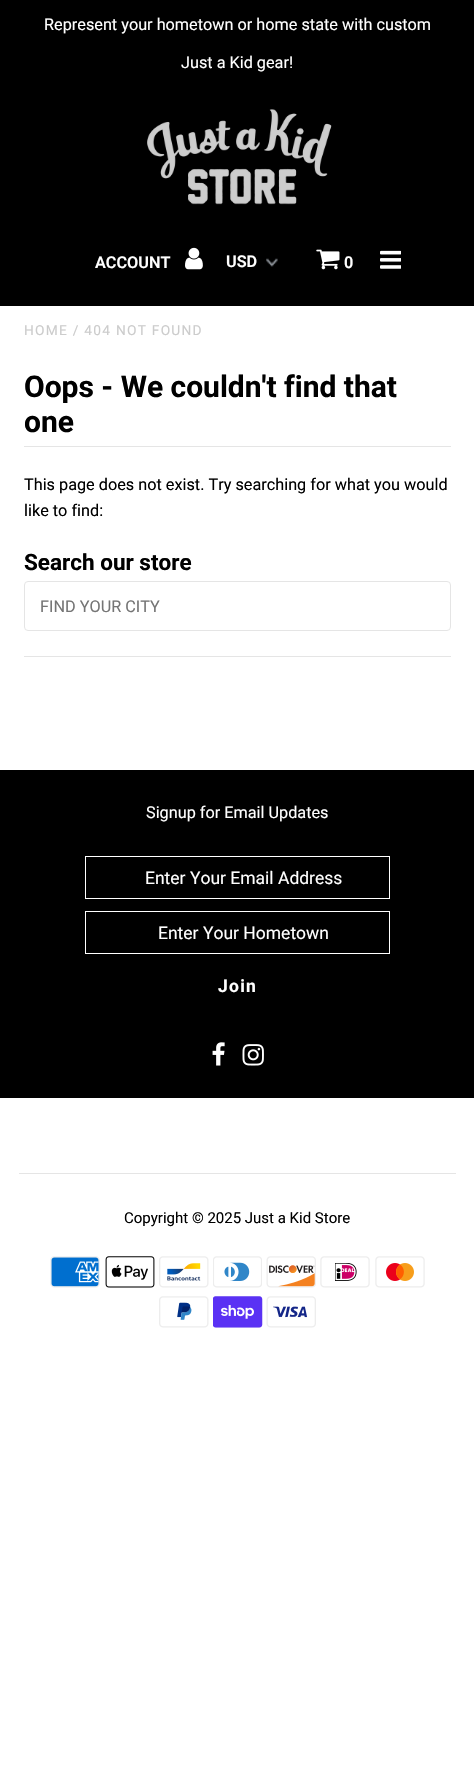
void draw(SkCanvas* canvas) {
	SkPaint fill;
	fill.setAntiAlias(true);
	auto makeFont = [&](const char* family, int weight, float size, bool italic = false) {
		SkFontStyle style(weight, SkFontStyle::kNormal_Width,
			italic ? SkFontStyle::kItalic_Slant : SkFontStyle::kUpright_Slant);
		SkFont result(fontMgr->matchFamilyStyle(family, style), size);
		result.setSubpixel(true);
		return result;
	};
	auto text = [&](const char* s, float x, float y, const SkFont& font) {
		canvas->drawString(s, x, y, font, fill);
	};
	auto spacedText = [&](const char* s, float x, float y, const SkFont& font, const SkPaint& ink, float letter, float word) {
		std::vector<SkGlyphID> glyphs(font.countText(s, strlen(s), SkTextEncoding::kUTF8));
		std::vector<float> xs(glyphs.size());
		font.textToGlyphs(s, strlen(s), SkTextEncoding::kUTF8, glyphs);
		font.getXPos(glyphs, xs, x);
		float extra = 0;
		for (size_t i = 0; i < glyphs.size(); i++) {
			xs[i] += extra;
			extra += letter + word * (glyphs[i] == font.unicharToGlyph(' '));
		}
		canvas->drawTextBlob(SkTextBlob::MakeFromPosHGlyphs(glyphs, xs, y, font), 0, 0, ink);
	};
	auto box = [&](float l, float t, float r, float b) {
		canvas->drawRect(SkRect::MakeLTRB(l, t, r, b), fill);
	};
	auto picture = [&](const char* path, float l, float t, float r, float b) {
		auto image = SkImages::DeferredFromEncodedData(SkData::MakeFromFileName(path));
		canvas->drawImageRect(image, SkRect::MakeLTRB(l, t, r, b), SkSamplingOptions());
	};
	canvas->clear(0xFFFFFFFF);
	fill.setColor(0xFF000000);
	box(0, 0, 474, 306);
	picture("image0.png", 147, 109, 332, 205);
	picture("image1.png", 185, 247, 203, 270);
	picture("image2.png", 266, 258, 278, 267);
	picture("image3.png", 316, 249, 340, 270);
	picture("image4.png", 380, 250, 401, 269);
	fill.setColor(0xFFE5E5E5);
	box(24, 446, 451, 447);
	box(24, 656, 451, 657);
	fill.setStyle(SkPaint::kStroke_Style);
	fill.setStrokeWidth(1);
	canvas->drawRoundRect(SkRect::MakeLTRB(24.5f, 581.5f, 450.5f, 630.5f), 3.5f, 3.5f, fill);
	fill.setStyle(SkPaint::kFill_Style);
	fill.setColor(0xFF000000);
	box(0, 770, 474, 1098);
	fill.setStyle(SkPaint::kStroke_Style);
	fill.setColor(0xFFFFFFFF);
	canvas->drawRect(SkRect::MakeLTRB(85.5f, 856.5f, 389.5f, 898.5f), fill);
	canvas->drawRect(SkRect::MakeLTRB(85.5f, 911.5f, 389.5f, 953.5f), fill);
	picture("image5.png", 212, 1042, 225, 1066);
	picture("image6.png", 242, 1044, 264, 1066);
	fill.setStyle(SkPaint::kFill_Style);
	fill.setColor(0xFFE5E5E5);
	box(19, 1173, 456, 1174);
	picture("image7.png", 50, 1256, 100, 1288);
	picture("image8.png", 105, 1256, 155, 1288);
	picture("image9.png", 159, 1256, 209, 1288);
	picture("image10.png", 213, 1256, 262, 1288);
	picture("image11.png", 266, 1256, 316, 1288);
	picture("image12.png", 320, 1256, 370, 1288);
	picture("image13.png", 375, 1256, 425, 1288);
	picture("image14.png", 159, 1296, 209, 1328);
	picture("image15.png", 213, 1296, 263, 1328);
	picture("image16.png", 266, 1296, 316, 1328);
	auto font1 = makeFont("Roboto", 400, 16.25f);
	fill.setColor(0xFFFFFFFF);
	text("Represent your hometown or home state with custom", 44, 30, font1);
	text("Just a Kid gear!", 181, 68, font1);
	auto font2 = makeFont("Roboto", 600, 16.25f);
	text("ACCOUNT", 95, 268, font2);
	text("USD", 226, 267, font2);
	text("0", 344, 268, font2);
	auto font3 = makeFont("Roboto", 400, 13.75f);
	fill.setColor(0xFFCCCCCC);
	spacedText("HOME / 404 NOT FOUND", 24, 335, font3, fill, 1.25f, 0);
	auto font4 = makeFont("Roboto", 700, 30);
	fill.setColor(0xFF000000);
	text("Oops - We couldn't find that", 24, 397, font4);
	text("one", 24, 432, font4);
	text("This page does not exist. Try searching for what you would", 24, 490, font1);
	text("like to find:", 24, 516, font1);
	auto font5 = makeFont("Roboto", 700, 22.5f);
	text("Search our store", 24, 570, font5);
	fill.setColor(0xFF757575);
	text("FIND YOUR CITY", 40, 612, font1);
	fill.setColor(0xFFFFFFFF);
	text("Signup for Email Updates", 146, 818, font1);
	auto font6 = makeFont("Roboto", 400, 17.5f);
	text("Enter Your Email Address", 145, 884, font6);
	text("Enter Your Hometown", 158, 939, font6);
	auto font7 = makeFont("Roboto", 700, 17.5f);
	spacedText("Join", 218, 992, font7, fill, 1.25f, 0);
	auto font8 = makeFont("Roboto", 400, 15);
	fill.setColor(0xFF000000);
	text("Copyright © 2025 Just a Kid Store", 124, 1223, font8);
}
